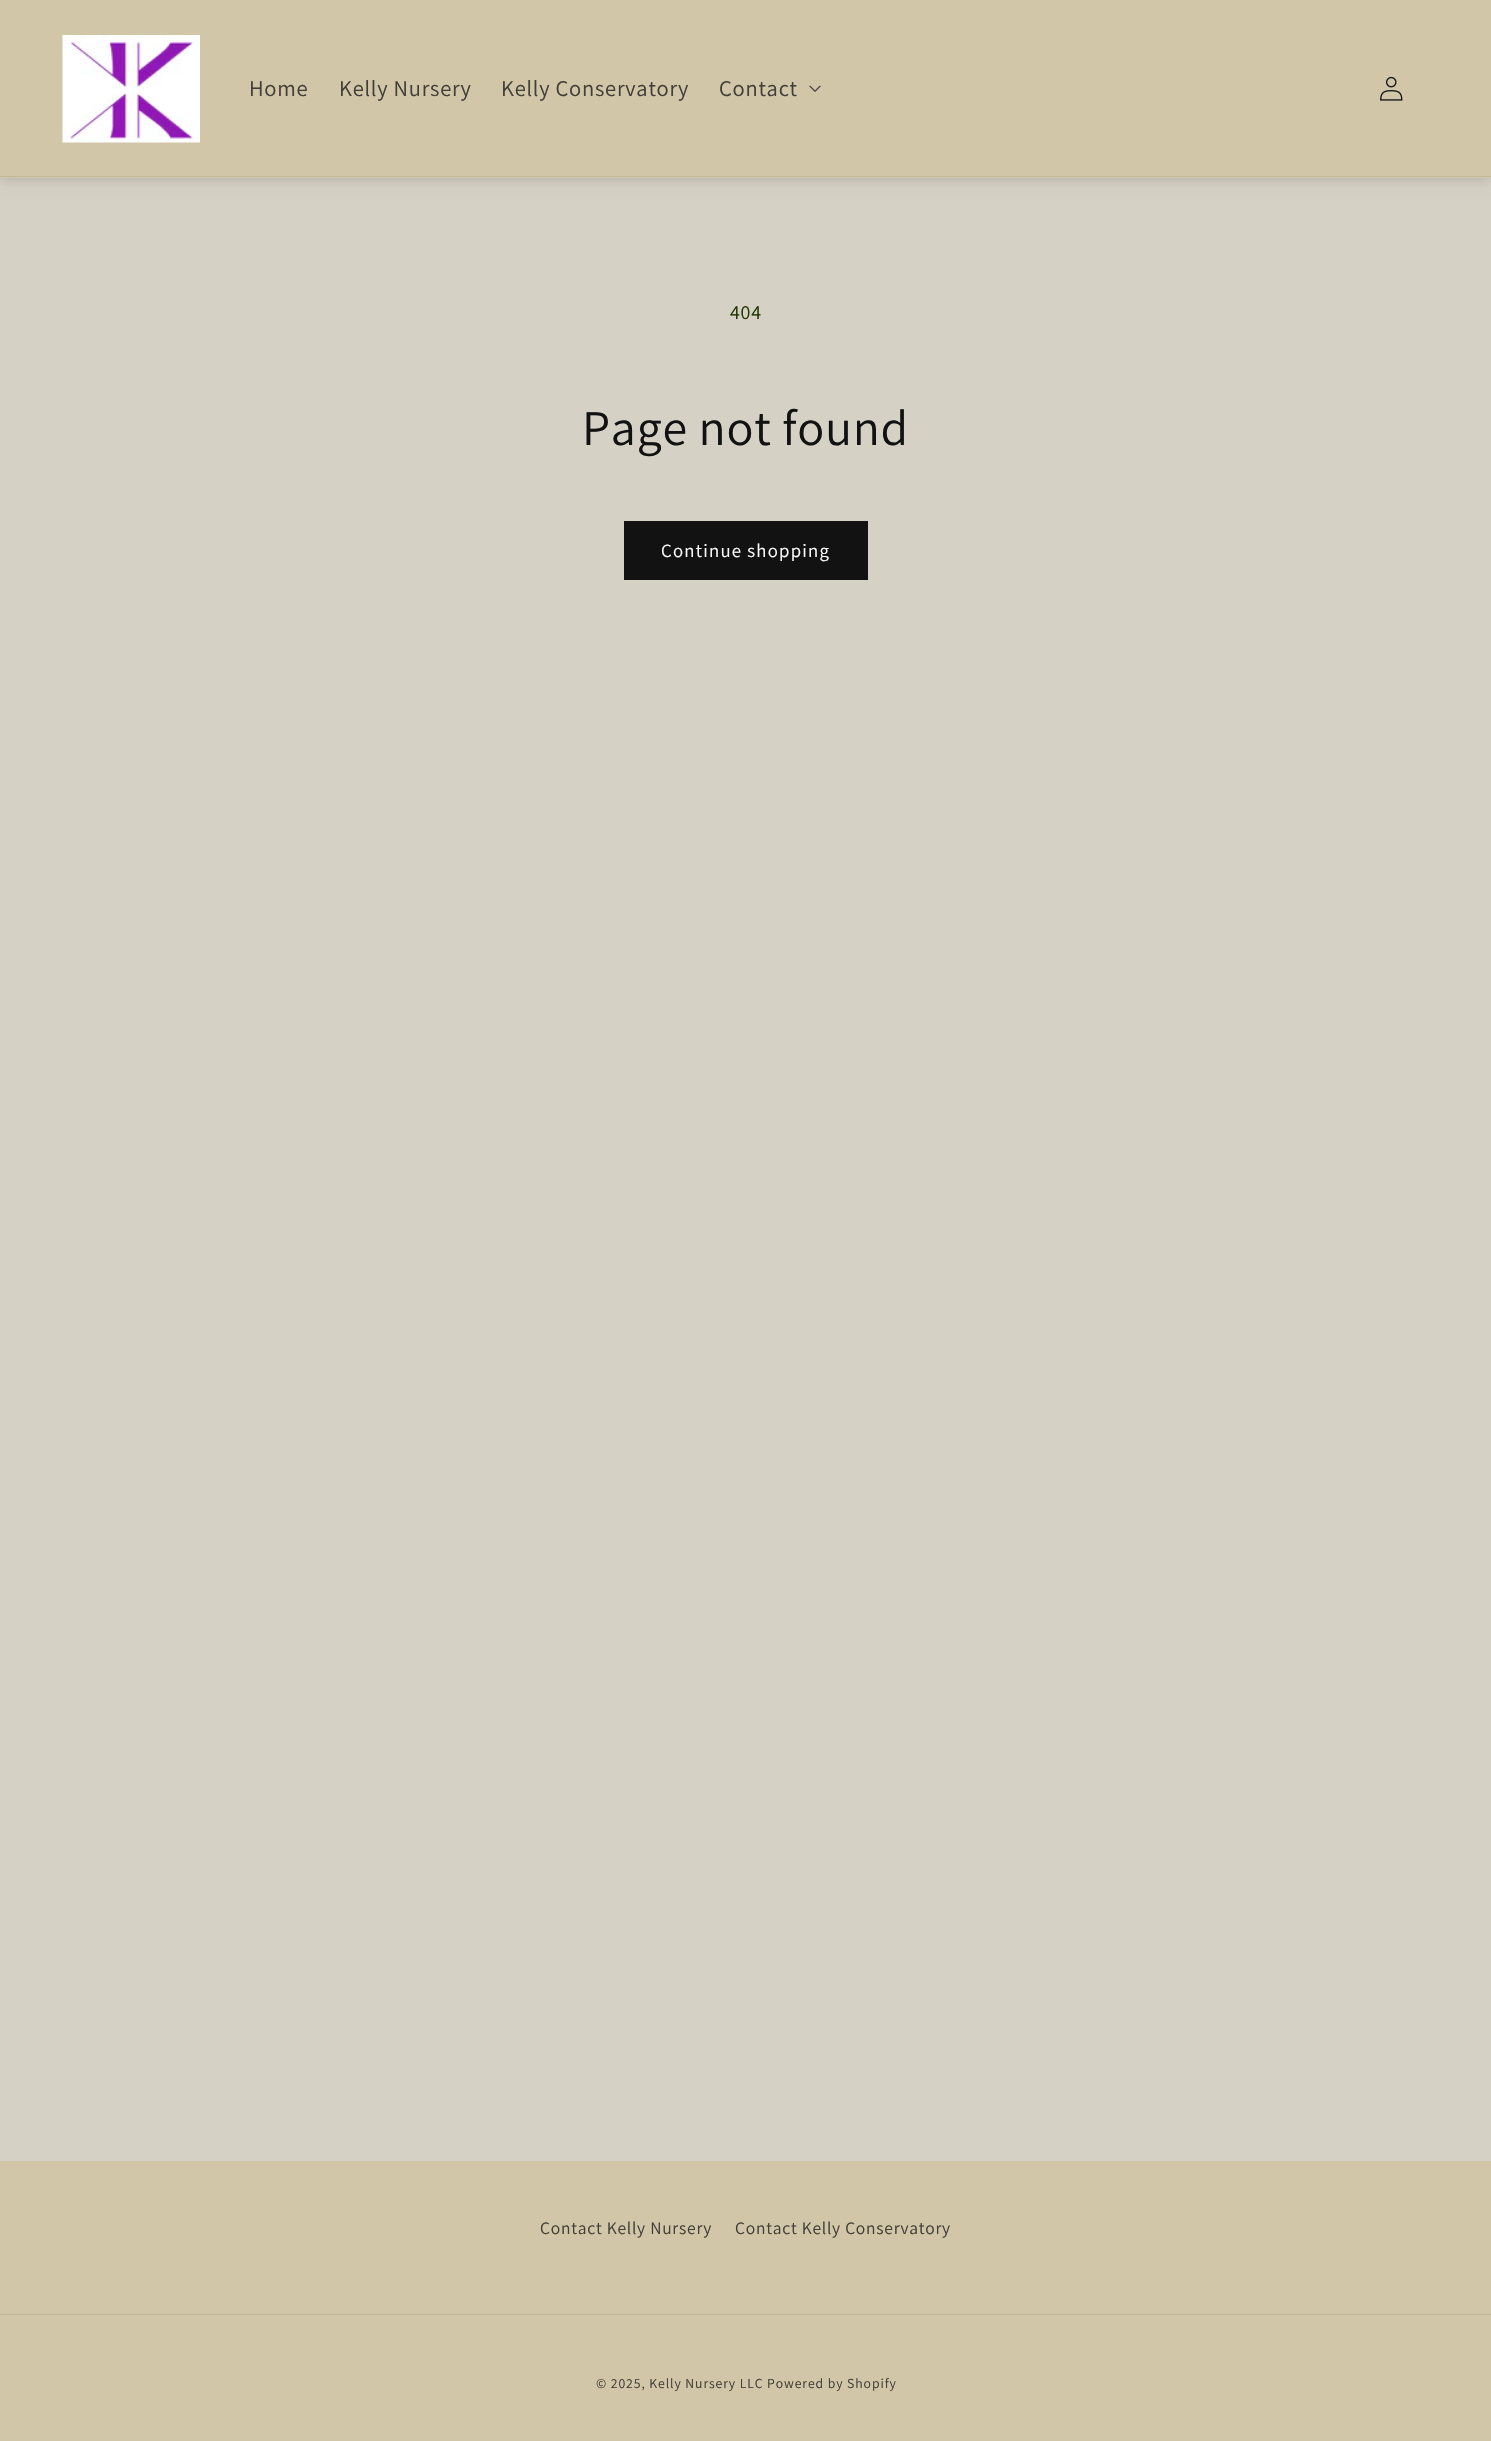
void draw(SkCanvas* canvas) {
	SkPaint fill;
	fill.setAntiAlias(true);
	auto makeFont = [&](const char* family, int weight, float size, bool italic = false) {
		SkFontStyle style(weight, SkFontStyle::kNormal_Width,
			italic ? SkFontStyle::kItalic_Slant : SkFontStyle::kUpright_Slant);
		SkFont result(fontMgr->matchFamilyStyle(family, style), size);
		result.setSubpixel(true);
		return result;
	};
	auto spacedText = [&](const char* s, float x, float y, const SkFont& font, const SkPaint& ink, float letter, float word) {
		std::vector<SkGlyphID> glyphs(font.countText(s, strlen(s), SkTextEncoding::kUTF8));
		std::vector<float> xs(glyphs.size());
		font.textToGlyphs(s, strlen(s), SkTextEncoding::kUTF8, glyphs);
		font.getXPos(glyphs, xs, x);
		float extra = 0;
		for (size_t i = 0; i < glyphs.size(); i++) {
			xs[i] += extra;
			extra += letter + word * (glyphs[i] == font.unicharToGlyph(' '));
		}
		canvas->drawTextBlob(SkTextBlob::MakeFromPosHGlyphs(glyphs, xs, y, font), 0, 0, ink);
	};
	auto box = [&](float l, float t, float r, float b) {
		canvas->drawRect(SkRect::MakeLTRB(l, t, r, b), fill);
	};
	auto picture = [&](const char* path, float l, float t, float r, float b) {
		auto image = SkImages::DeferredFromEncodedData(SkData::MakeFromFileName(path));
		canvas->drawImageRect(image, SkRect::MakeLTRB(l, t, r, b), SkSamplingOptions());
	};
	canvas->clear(0xFFD6D1C5);
	fill.setColor(0x26000000);
	fill.setMaskFilter(SkMaskFilter::MakeBlur(kNormal_SkBlurStyle, 6));
	canvas->drawRect(SkRect::MakeLTRB(0, 3, 1491, 180), fill);
	fill.setMaskFilter(nullptr);
	fill.setColor(0xFFD2C6A8);
	box(0, 0, 1491, 178);
	fill.setColor(0xFFC3B89C);
	box(0, 176, 1491, 177);
	picture("image0.png", 62, 35, 200, 143);
	picture("image1.png", 809, 85, 821, 92);
	picture("image2.png", 1380, 76, 1403, 101);
	fill.setColor(0xFF121212);
	box(624, 521, 868, 580);
	fill.setColor(0xFFD2C6A8);
	box(0, 2161, 1491, 2441);
	fill.setColor(0xFFC3B89C);
	box(0, 2314, 1491, 2315);
	auto font1 = makeFont("Assistant", 400, 22.5f);
	fill.setColor(0xFF423F38);
	spacedText("Home", 249, 96, font1, fill, 0.75f, 0);
	spacedText("Kelly Nursery", 339, 96, font1, fill, 0.75f, 0);
	spacedText("Kelly Conservatory", 501, 96, font1, fill, 0.75f, 0);
	spacedText("Contact", 719, 96, font1, fill, 0.75f, 0);
	auto font2 = makeFont("Assistant", 400, 20);
	fill.setColor(0xFF203300);
	spacedText("404", 730, 319, font2, fill, 0.75f, 0);
	auto font3 = makeFont("Assistant", 400, 50);
	fill.setColor(0xFF121212);
	spacedText("Page not found", 582, 445, font3, fill, 0.75f, 0);
	auto font4 = makeFont("Assistant", 400, 18.75f);
	fill.setColor(0xFFFFFFFF);
	spacedText("Continue shopping", 661, 557, font4, fill, 1.25f, 0);
	auto font5 = makeFont("Assistant", 400, 17.5f);
	fill.setColor(0xFF423F38);
	spacedText("Contact Kelly Nursery", 540, 2234, font5, fill, 0.75f, 0);
	spacedText("Contact Kelly Conservatory", 735, 2234, font5, fill, 0.75f, 0);
	auto font6 = makeFont("Assistant", 400, 13.75f);
	spacedText("© 2025, Kelly Nursery LLC Powered by Shopify", 596, 2388, font6, fill, 0.9f, 0);
}
